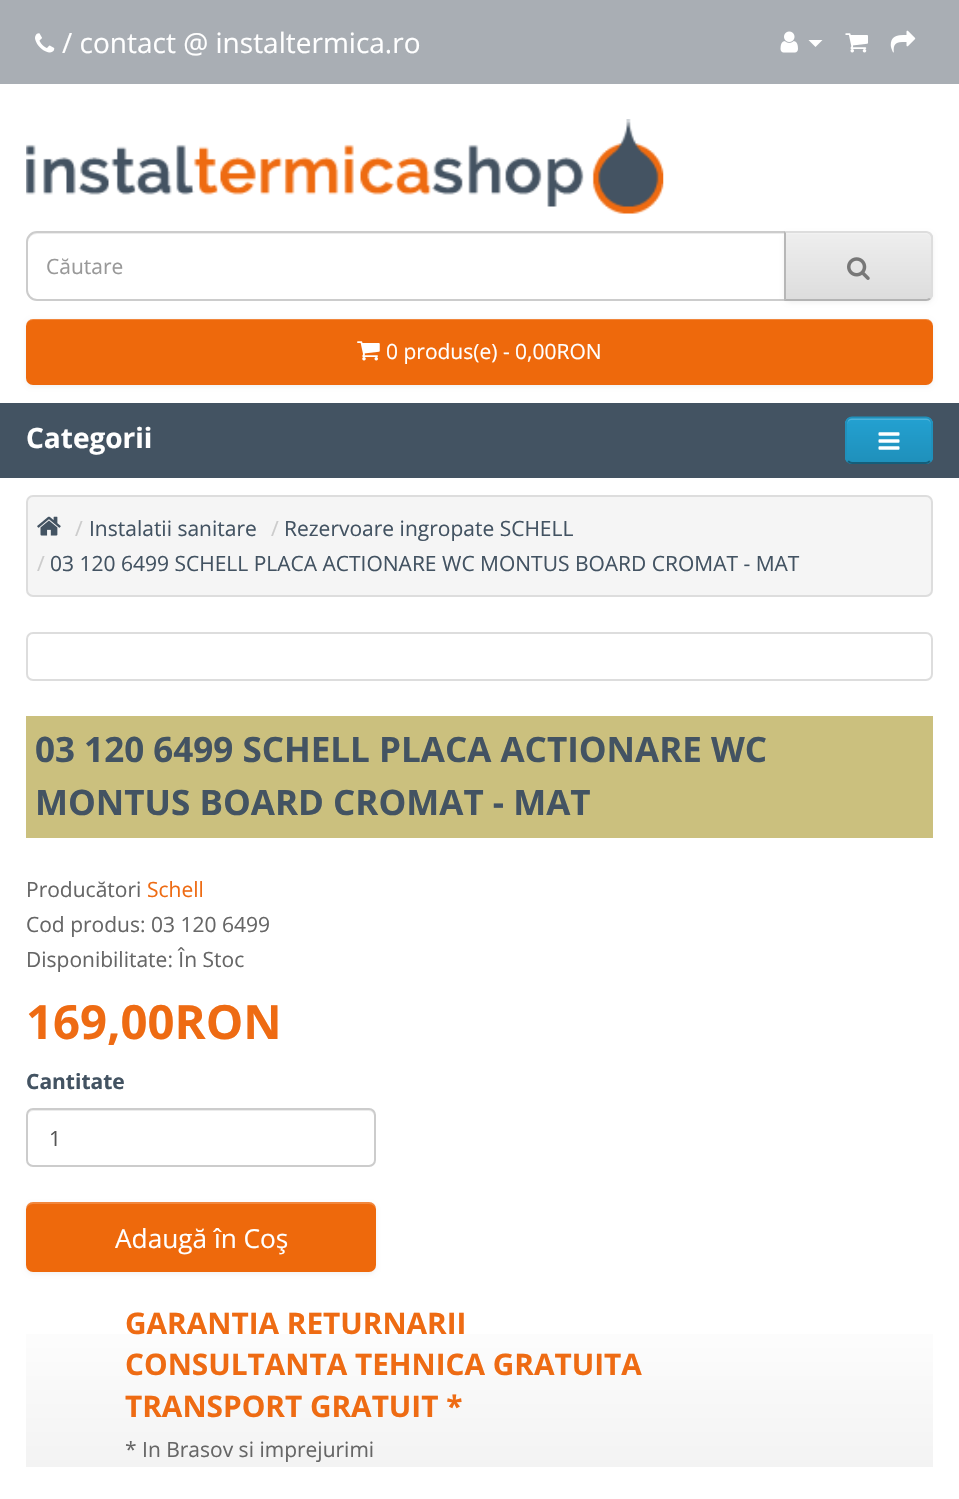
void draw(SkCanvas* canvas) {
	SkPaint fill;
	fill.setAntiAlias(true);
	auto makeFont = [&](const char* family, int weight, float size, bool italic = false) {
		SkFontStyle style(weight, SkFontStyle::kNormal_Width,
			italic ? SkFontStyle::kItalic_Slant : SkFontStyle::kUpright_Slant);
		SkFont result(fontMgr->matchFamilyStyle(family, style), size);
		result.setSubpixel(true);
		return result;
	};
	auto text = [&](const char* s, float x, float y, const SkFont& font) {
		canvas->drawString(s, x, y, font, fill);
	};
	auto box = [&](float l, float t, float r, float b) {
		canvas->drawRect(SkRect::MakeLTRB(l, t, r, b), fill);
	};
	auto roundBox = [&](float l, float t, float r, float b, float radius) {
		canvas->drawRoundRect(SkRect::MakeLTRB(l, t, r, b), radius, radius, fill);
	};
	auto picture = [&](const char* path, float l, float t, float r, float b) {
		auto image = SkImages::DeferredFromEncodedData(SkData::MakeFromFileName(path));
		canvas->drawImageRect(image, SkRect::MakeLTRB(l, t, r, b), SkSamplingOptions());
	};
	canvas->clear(0xFFFFFFFF);
	fill.setColor(0xFFA9AEB4);
	box(0, 0, 959, 84);
	picture("image0.png", 35, 33, 55, 53);
	picture("image1.png", 780, 31, 798, 53);
	fill.setColor(0xFFFFFFFF);
	canvas->drawPath(SkPathBuilder().moveTo(808.5f, 40).lineTo(822.5f, 40).lineTo(815.5f, 47).close().detach(), fill);
	picture("image2.png", 845, 33, 868, 53);
	picture("image3.png", 890, 30, 916, 53);
	picture("image4.png", 26, 119, 664, 214);
	fill.setColor(0xFFECECEC);
	canvas->drawPath(SkPathBuilder().moveTo(37, 234).lineTo(784, 234).lineTo(784, 233).lineTo(37, 233).cubicTo(32, 233, 28, 237, 28, 242).lineTo(28, 243).cubicTo(28, 238, 32, 234, 37, 234).close().detach(), fill);
	fill.setStyle(SkPaint::kStroke_Style);
	fill.setStrokeWidth(2);
	fill.setColor(0xFFCCCCCC);
	canvas->drawPath(SkPathBuilder().moveTo(37, 232).lineTo(785, 232).lineTo(785, 300).lineTo(37, 300).cubicTo(31.5f, 300, 27, 295.5f, 27, 290).lineTo(27, 242).cubicTo(27, 236.5f, 31.5f, 232, 37, 232).close().detach(), fill);
	fill.setStyle(SkPaint::kFill_Style);
	fill.setColor(0x0D000000);
	fill.setMaskFilter(SkMaskFilter::MakeBlur(kNormal_SkBlurStyle, 2));
	canvas->drawRoundRect(SkRect::MakeLTRB(784, 233, 933, 303), 7, 7, fill);
	fill.setMaskFilter(nullptr);
	canvas->save();
	canvas->clipPath(SkPathBuilder().moveTo(784, 231).lineTo(926, 231).cubicTo(930, 231, 933, 234, 933, 238).lineTo(933, 294).cubicTo(933, 298, 930, 301, 926, 301).lineTo(784, 301).close().detach(), true);
	{
		const SkColor colors[] = {0xFFEEEEEE, 0xFFDDDDDD};
		const float stops[] = {0, 1};
		const SkPoint ends[] = {{858, 233}, {858, 299}};
		fill.setShader(SkGradientShader::MakeLinear(ends, colors, stops, 2, SkTileMode::kClamp));
		fill.setAlpha(255);
	}
	box(786, 233, 933, 299);
	canvas->restore();
	fill.setShader(nullptr);
	fill.setColor(0xFFF1F1F1);
	canvas->drawPath(SkPathBuilder().moveTo(786, 234).lineTo(926, 234).cubicTo(929, 234, 931, 237, 931, 240).lineTo(931, 238).cubicTo(931, 235, 929, 233, 926, 233).lineTo(786, 233).close().detach(), fill);
	fill.setColor(0xFFDDDDDD);
	canvas->drawPath(SkPathBuilder().moveTo(784, 231).lineTo(786, 233).lineTo(927, 233).lineTo(929, 234).lineTo(931, 233).cubicTo(930, 232, 928, 231, 926, 231).close().detach(), fill);
	canvas->drawPath(SkPathBuilder().moveTo(933, 296).lineTo(931, 299).lineTo(929, 298).cubicTo(930, 297, 931, 296, 931, 294).lineTo(931, 238).cubicTo(931, 236, 930, 235, 929, 234).lineTo(931, 233).lineTo(933, 236).close().detach(), fill);
	fill.setColor(0xFFB3B3B3);
	canvas->drawPath(SkPathBuilder().moveTo(926, 301).cubicTo(928, 301, 930, 300, 931, 299).lineTo(929, 298).lineTo(927, 299).lineTo(786, 299).lineTo(784, 301).close().detach(), fill);
	fill.setColor(0xFFB7B7B7);
	canvas->drawPath(SkPathBuilder().moveTo(784, 231).lineTo(784, 301).lineTo(786, 299).lineTo(786, 233).close().detach(), fill);
	picture("image5.png", 847, 257, 870, 280);
	fill.setColor(0x0D000000);
	fill.setMaskFilter(SkMaskFilter::MakeBlur(kNormal_SkBlurStyle, 2));
	canvas->drawRoundRect(SkRect::MakeLTRB(26, 320, 933, 387), 7, 7, fill);
	fill.setMaskFilter(nullptr);
	fill.setColor(0xFFEE690C);
	roundBox(26, 319, 933, 385, 7);
	fill.setColor(0x33FFFFFF);
	canvas->drawPath(SkPathBuilder().moveTo(33, 320).lineTo(926, 320).cubicTo(930, 320, 933, 323, 933, 327).cubicTo(933, 323, 931, 319, 926, 319).lineTo(33, 319).cubicTo(28, 319, 26, 323, 26, 327).cubicTo(26, 323, 29, 320, 33, 320).close().detach(), fill);
	picture("image6.png", 357, 341, 380, 361);
	fill.setColor(0xFF435362);
	box(0, 403, 959, 478);
	fill.setColor(0xFF229AC8);
	roundBox(845, 417, 933, 464, 7);
	canvas->save();
	canvas->clipPath(SkPathBuilder().moveTo(852, 417).lineTo(926, 417).cubicTo(930, 417, 933, 420, 933, 424).lineTo(933, 457).cubicTo(933, 461, 930, 464, 926, 464).lineTo(852, 464).cubicTo(848, 464, 845, 461, 845, 457).lineTo(845, 424).cubicTo(845, 420, 848, 417, 852, 417).close().detach(), true);
	{
		const SkColor colors[] = {0xFF23A1D1, 0xFF1F90BB};
		const float stops[] = {0, 1};
		const SkPoint ends[] = {{889, 418}, {889, 462}};
		fill.setShader(SkGradientShader::MakeLinear(ends, colors, stops, 2, SkTileMode::kClamp));
		fill.setAlpha(255);
	}
	box(845, 418, 933, 462);
	canvas->restore();
	fill.setShader(nullptr);
	fill.setColor(0xFF4FB3DA);
	canvas->drawPath(SkPathBuilder().moveTo(852, 420).lineTo(926, 420).cubicTo(929, 420, 931, 422, 931, 425).cubicTo(931, 415, 922, 418, 914, 418).lineTo(864, 418).cubicTo(856, 418, 847, 415, 847, 425).cubicTo(847, 422, 849, 420, 852, 420).close().detach(), fill);
	fill.setStyle(SkPaint::kStroke_Style);
	fill.setStrokeWidth(1.8f);
	fill.setColor(0xFF145E7A);
	canvas->drawPath(SkPathBuilder().moveTo(930, 461).cubicTo(929, 462, 927.5f, 463, 926, 463).lineTo(852, 463).cubicTo(850.5f, 463, 849, 462, 848, 461).detach(), fill);
	fill.setColor(0xFF1F90BB);
	canvas->drawPath(SkPathBuilder().moveTo(848, 461).cubicTo(847, 460, 846, 458.5f, 846, 457).lineTo(846, 423.5f).cubicTo(846, 422, 847, 420.5f, 848, 419).cubicTo(849, 418, 850.5f, 417.5f, 852, 417.5f).lineTo(926, 417.5f).cubicTo(927.5f, 417.5f, 929, 418, 930, 419).cubicTo(931, 420.5f, 932, 422, 932, 423.5f).lineTo(932, 457).cubicTo(932, 458.5f, 931, 460, 930, 461).detach(), fill);
	picture("image7.png", 878, 432, 900, 450);
	fill.setStyle(SkPaint::kFill_Style);
	fill.setColor(0xFFF5F5F5);
	canvas->drawRoundRect(SkRect::MakeLTRB(27, 496, 932, 596), 6, 6, fill);
	fill.setStyle(SkPaint::kStroke_Style);
	fill.setStrokeWidth(2);
	fill.setColor(0xFFDDDDDD);
	canvas->drawRoundRect(SkRect::MakeLTRB(27, 496, 932, 596), 6, 6, fill);
	picture("image8.png", 37, 516, 61, 536);
	canvas->drawRoundRect(SkRect::MakeLTRB(27, 633, 932, 680), 6, 6, fill);
	fill.setStyle(SkPaint::kFill_Style);
	fill.setColor(0xFFCBC07E);
	box(26, 716, 933, 838);
	fill.setColor(0xFFECECEC);
	canvas->drawPath(SkPathBuilder().moveTo(33, 1111).lineTo(369, 1111).cubicTo(372, 1111, 374, 1114, 374, 1116).lineTo(374, 1162).lineTo(373, 1165).cubicTo(374, 1164, 375, 1162, 375, 1161).lineTo(375, 1115).cubicTo(375, 1112, 373, 1110, 370, 1110).lineTo(33, 1110).cubicTo(30, 1110, 28, 1112, 28, 1115).lineTo(28, 1116).cubicTo(28, 1114, 30, 1111, 33, 1111).close().detach(), fill);
	fill.setStyle(SkPaint::kStroke_Style);
	fill.setColor(0xFFCCCCCC);
	canvas->drawRoundRect(SkRect::MakeLTRB(27, 1109, 375, 1166), 6, 6, fill);
	fill.setStyle(SkPaint::kFill_Style);
	fill.setColor(0x0D000000);
	fill.setMaskFilter(SkMaskFilter::MakeBlur(kNormal_SkBlurStyle, 2));
	canvas->drawRoundRect(SkRect::MakeLTRB(26, 1204, 376, 1274), 7, 7, fill);
	fill.setMaskFilter(nullptr);
	fill.setColor(0xFFEE690C);
	roundBox(26, 1202, 376, 1272, 7);
	fill.setColor(0x33FFFFFF);
	canvas->drawPath(SkPathBuilder().moveTo(33, 1204).lineTo(369, 1204).cubicTo(373, 1204, 376, 1207, 376, 1211).cubicTo(376, 1207, 374, 1202, 369, 1202).lineTo(32, 1202).cubicTo(27, 1203, 26, 1207, 26, 1211).cubicTo(26, 1207, 29, 1204, 33, 1204).close().detach(), fill);
	{
		const SkColor colors[] = {0xFFFFFFFF, 0xFFF3F3F3};
		const float stops[] = {0, 1};
		const SkPoint ends[] = {{480, 1299}, {480, 1467}};
		fill.setShader(SkGradientShader::MakeLinear(ends, colors, stops, 2, SkTileMode::kClamp));
		fill.setAlpha(255);
	}
	box(26, 1334, 933, 1467);
	auto font1 = makeFont("Open Sans", 400, 28);
	fill.setShader(nullptr);
	fill.setColor(0xFFFFFFFF);
	text("/ contact @ instaltermica.ro", 62, 53, font1);
	auto font2 = makeFont("Open Sans", 400, 21);
	fill.setColor(0xFF999999);
	text("Căutare", 46, 274, font2);
	fill.setColor(0xFFFFFFFF);
	text("0 produs(e) - 0,00RON", 386, 359, font2);
	auto font3 = makeFont("Open Sans", 700, 28);
	text("Categorii", 26, 448, font3);
	fill.setColor(0xFFCCCCCC);
	text("/", 75, 536, font2);
	fill.setColor(0xFF435362);
	text("Instalatii sanitare", 89, 536, font2);
	fill.setColor(0xFFCCCCCC);
	text("/", 271, 536, font2);
	fill.setColor(0xFF435362);
	text("Rezervoare ingropate SCHELL", 284, 536, font2);
	fill.setColor(0xFFCCCCCC);
	text("/", 37, 571, font2);
	fill.setColor(0xFF435362);
	text("03 120 6499 SCHELL PLACA ACTIONARE WC MONTUS BOARD CROMAT - MAT", 50, 571, font2);
	auto font4 = makeFont("Open Sans", 700, 35);
	text("03 120 6499 SCHELL PLACA ACTIONARE WC", 35, 762, font4);
	text("MONTUS BOARD CROMAT - MAT", 35, 815, font4);
	fill.setColor(0xFF666666);
	text("Producători", 26, 897, font2);
	fill.setColor(0xFFEE6B13);
	text("Schell", 147, 897, font2);
	fill.setColor(0xFF666666);
	text("Cod produs: 03 120 6499", 26, 932, font2);
	text("Disponibilitate: În Stoc", 26, 967, font2);
	auto font5 = makeFont("Open Sans", 700, 47.25f);
	fill.setColor(0xFFEE6B13);
	text("169,00RON", 26, 1039, font5);
	auto font6 = makeFont("Open Sans", 700, 21);
	fill.setColor(0xFF435362);
	text("Cantitate", 26, 1089, font6);
	fill.setColor(0xFF555555);
	text("1", 49, 1146, font2);
	auto font7 = makeFont("Open Sans", 400, 26.25f);
	fill.setColor(0xFFFFFFFF);
	text("Adaugă în Coş", 115, 1248, font7);
	auto font8 = makeFont("Open Sans", 700, 29.75f);
	fill.setColor(0xFFEE6B13);
	text("GARANTIA RETURNARII", 125, 1334, font8);
	text("CONSULTANTA TEHNICA GRATUITA", 125, 1375, font8);
	text("TRANSPORT GRATUIT *", 125, 1417, font8);
	fill.setColor(0xFF666666);
	text("* In Brasov si imprejurimi", 125, 1457, font2);
}
